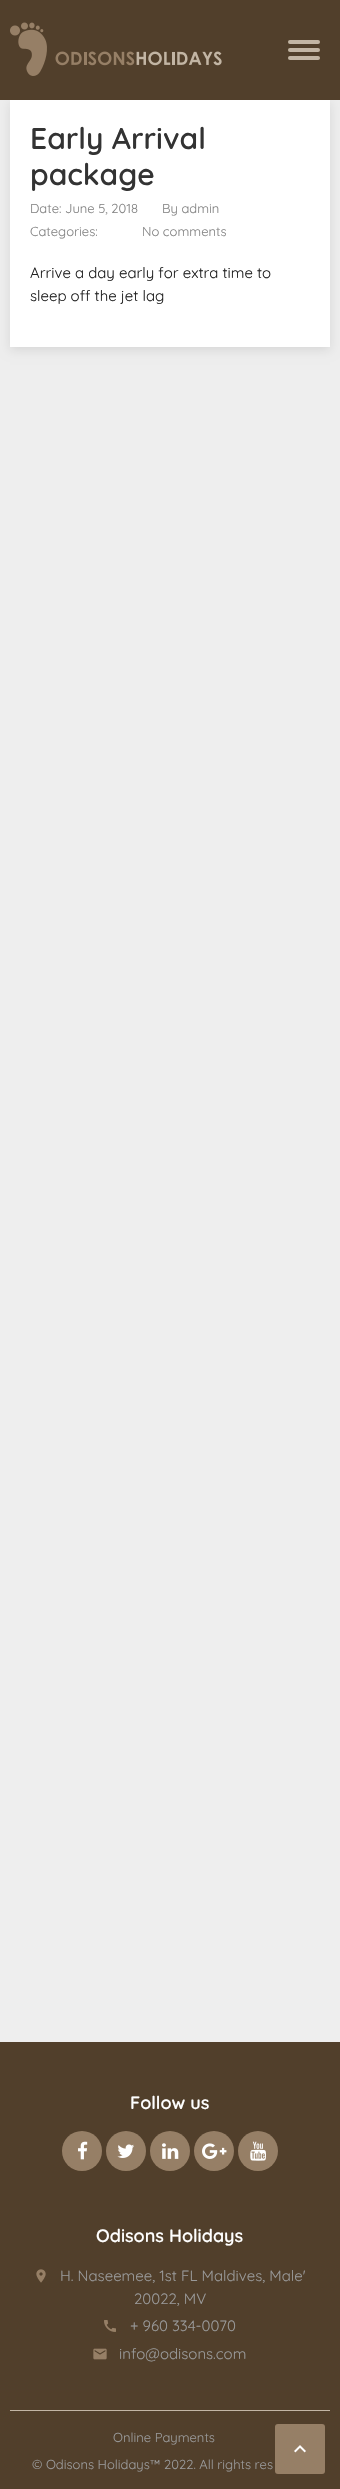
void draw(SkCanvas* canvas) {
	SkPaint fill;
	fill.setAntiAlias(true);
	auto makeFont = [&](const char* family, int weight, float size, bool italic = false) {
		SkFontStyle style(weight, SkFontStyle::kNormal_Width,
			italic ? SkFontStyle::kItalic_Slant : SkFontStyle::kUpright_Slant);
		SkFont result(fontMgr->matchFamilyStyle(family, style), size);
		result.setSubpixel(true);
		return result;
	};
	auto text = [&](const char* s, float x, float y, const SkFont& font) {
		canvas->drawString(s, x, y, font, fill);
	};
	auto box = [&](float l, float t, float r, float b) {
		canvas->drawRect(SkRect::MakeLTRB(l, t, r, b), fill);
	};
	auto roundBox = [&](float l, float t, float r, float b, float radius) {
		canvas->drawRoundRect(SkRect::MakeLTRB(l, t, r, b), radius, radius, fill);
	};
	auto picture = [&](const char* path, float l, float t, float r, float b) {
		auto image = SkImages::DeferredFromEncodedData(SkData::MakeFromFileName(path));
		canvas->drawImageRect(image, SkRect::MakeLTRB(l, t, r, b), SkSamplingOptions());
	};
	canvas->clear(0xFFEEEEEE);
	fill.setColor(0x1A000000);
	fill.setMaskFilter(SkMaskFilter::MakeBlur(kNormal_SkBlurStyle, 5));
	canvas->drawRect(SkRect::MakeLTRB(10, 103, 330, 350), fill);
	fill.setMaskFilter(nullptr);
	fill.setColor(0xFF513F2B);
	box(0, 0, 340, 100);
	picture("image0.png", 10, 22, 222, 76);
	fill.setColor(0xFFC2B5A4);
	roundBox(288, 40, 320, 44, 2);
	roundBox(288, 48, 320, 52, 2);
	roundBox(288, 56, 320, 60, 2);
	fill.setColor(0xFFFFFFFF);
	box(10, 100, 330, 347);
	fill.setColor(0xFF513F2B);
	box(0, 2042, 340, 2489);
	fill.setColor(0xFF967F66);
	roundBox(275, 2424, 325, 2474, 3);
	picture("image1.png", 294, 2445, 306, 2453);
	fill.setColor(0xFFC2B5A4);
	box(10, 2410, 330, 2411);
	fill.setColor(0xFF967F66);
	canvas->drawCircle(82, 2151, 20, fill);
	picture("image2.png", 78, 2141, 88, 2160);
	canvas->drawCircle(126, 2151, 20, fill);
	picture("image3.png", 117, 2144, 134, 2158);
	canvas->drawCircle(170, 2151, 20, fill);
	picture("image4.png", 162, 2143, 179, 2159);
	canvas->drawCircle(214, 2151, 20, fill);
	picture("image5.png", 202, 2143, 227, 2159);
	canvas->drawCircle(258, 2151, 20, fill);
	picture("image6.png", 250, 2141, 266, 2161);
	picture("image7.png", 36, 2269, 46, 2283);
	picture("image8.png", 104, 2320, 116, 2332);
	picture("image9.png", 93, 2348, 107, 2360);
	auto font1 = makeFont("Quicksand", 600, 30);
	fill.setColor(0xFF333333);
	text("Early Arrival", 30, 149, font1);
	text("package", 30, 185, font1);
	auto font2 = makeFont("Quicksand", 400, 13);
	fill.setColor(0xFF858585);
	text("Date: June 5, 2018", 30, 213, font2);
	text("By admin", 162, 213, font2);
	text("Categories:", 30, 236, font2);
	text("No comments", 142, 236, font2);
	auto font3 = makeFont("Quicksand", 400, 15);
	fill.setColor(0xFF222222);
	text("Arrive a day early for extra time to", 30, 278, font3);
	text("sleep off the jet lag", 30, 301, font3);
	auto font4 = makeFont("Quicksand", 600, 18);
	fill.setColor(0xFFFFFFFF);
	text("Follow us", 130, 2109, font4);
	text("Odisons Holidays", 96, 2242, font4);
	fill.setColor(0xFF999999);
	text("H. Naseemee, 1st FL Maldives, Male'", 60, 2281, font3);
	text("20022, MV", 134, 2304, font3);
	text("+ 960 334-0070", 130, 2331, font3);
	text("info@odisons.com", 119, 2359, font3);
	text("Online Payments", 113, 2442, font2);
	text("© Odisons Holidays™ 2022. All rights res", 32, 2469, font2);
}
